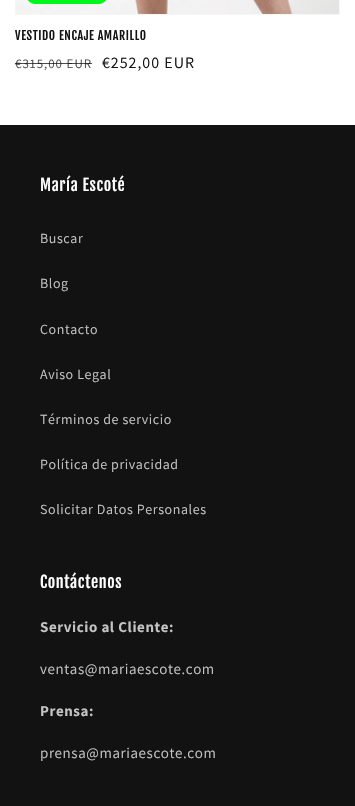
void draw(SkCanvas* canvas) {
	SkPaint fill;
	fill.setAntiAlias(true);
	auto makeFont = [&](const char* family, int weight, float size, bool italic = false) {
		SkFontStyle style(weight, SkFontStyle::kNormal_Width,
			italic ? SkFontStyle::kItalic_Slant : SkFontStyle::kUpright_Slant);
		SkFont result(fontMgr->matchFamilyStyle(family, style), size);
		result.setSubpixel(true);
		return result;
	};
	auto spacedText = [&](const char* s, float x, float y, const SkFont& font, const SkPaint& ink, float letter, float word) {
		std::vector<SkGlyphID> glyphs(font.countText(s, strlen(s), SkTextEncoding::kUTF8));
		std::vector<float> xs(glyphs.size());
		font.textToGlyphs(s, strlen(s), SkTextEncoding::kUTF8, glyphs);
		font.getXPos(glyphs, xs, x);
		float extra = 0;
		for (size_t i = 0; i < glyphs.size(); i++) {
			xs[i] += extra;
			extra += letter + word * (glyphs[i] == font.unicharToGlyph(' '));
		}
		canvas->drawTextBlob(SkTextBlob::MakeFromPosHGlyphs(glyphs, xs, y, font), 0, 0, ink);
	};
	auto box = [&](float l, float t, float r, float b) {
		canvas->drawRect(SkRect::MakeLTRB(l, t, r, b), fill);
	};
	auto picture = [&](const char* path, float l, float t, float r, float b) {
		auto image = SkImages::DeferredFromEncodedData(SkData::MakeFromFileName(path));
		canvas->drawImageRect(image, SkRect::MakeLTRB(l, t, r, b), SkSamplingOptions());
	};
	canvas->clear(0xFFFFFFFF);
	fill.setStyle(SkPaint::kStroke_Style);
	fill.setStrokeWidth(1);
	fill.setColor(0xFFF6F6F6);
	canvas->drawRect(SkRect::MakeLTRB(15.5f, -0.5f, 339.5f, 14.5f), fill);
	picture("image0.png", 16, 0, 339, 14);
	fill.setStyle(SkPaint::kFill_Style);
	fill.setColor(0xFF00F71A);
	canvas->drawRoundRect(SkRect::MakeLTRB(26.5f, -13.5f, 107.5f, 3.5f), 12.5f, 12.5f, fill);
	fill.setStyle(SkPaint::kStroke_Style);
	canvas->drawRoundRect(SkRect::MakeLTRB(26.5f, -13.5f, 107.5f, 3.5f), 12.5f, 12.5f, fill);
	fill.setStyle(SkPaint::kFill_Style);
	fill.setColor(0xFF121212);
	box(0, 125, 355, 806);
	auto font1 = makeFont("Fjalla One", 400, 12);
	spacedText("VESTIDO ENCAJE AMARILLO", 15, 40, font1, fill, 0.6f, 0);
	auto font2 = makeFont("Assistant", 400, 13);
	fill.setColor(0xFF4D4D4D);
	spacedText("€315,00 EUR", 15, 68, font2, fill, 1, 0);
	fill.setColor(0xBF121212);
	box(15, 63, 92, 64);
	auto font3 = makeFont("Assistant", 400, 16);
	fill.setColor(0xFF121212);
	spacedText("€252,00 EUR", 102, 68, font3, fill, 1, 0);
	auto font4 = makeFont("Fjalla One", 400, 16);
	fill.setColor(0xFFFFFFFF);
	spacedText("María Escoté", 40, 191, font4, fill, 0.6f, 0);
	auto font5 = makeFont("Assistant", 400, 14);
	fill.setColor(0xFFC4C4C4);
	spacedText("Buscar", 40, 243, font5, fill, 0.6f, 0);
	spacedText("Blog", 40, 288, font5, fill, 0.6f, 0);
	spacedText("Contacto", 40, 334, font5, fill, 0.6f, 0);
	spacedText("Aviso Legal", 40, 379, font5, fill, 0.6f, 0);
	spacedText("Términos de servicio", 40, 424, font5, fill, 0.6f, 0);
	spacedText("Política de privacidad", 40, 469, font5, fill, 0.6f, 0);
	spacedText("Solicitar Datos Personales", 40, 514, font5, fill, 0.6f, 0);
	fill.setColor(0xFFFFFFFF);
	spacedText("Contáctenos", 40, 588, font4, fill, 0.6f, 0);
	auto font6 = makeFont("Assistant", 700, 15);
	fill.setColor(0xFFC4C4C4);
	spacedText("Servicio al Cliente:", 40, 632, font6, fill, 0.6f, 0);
	auto font7 = makeFont("Assistant", 400, 15);
	spacedText("ventas@mariaescote.com", 40, 674, font7, fill, 0.6f, 0);
	spacedText("Prensa:", 40, 716, font6, fill, 0.6f, 0);
	spacedText("prensa@mariaescote.com", 40, 758, font7, fill, 0.6f, 0);
}
